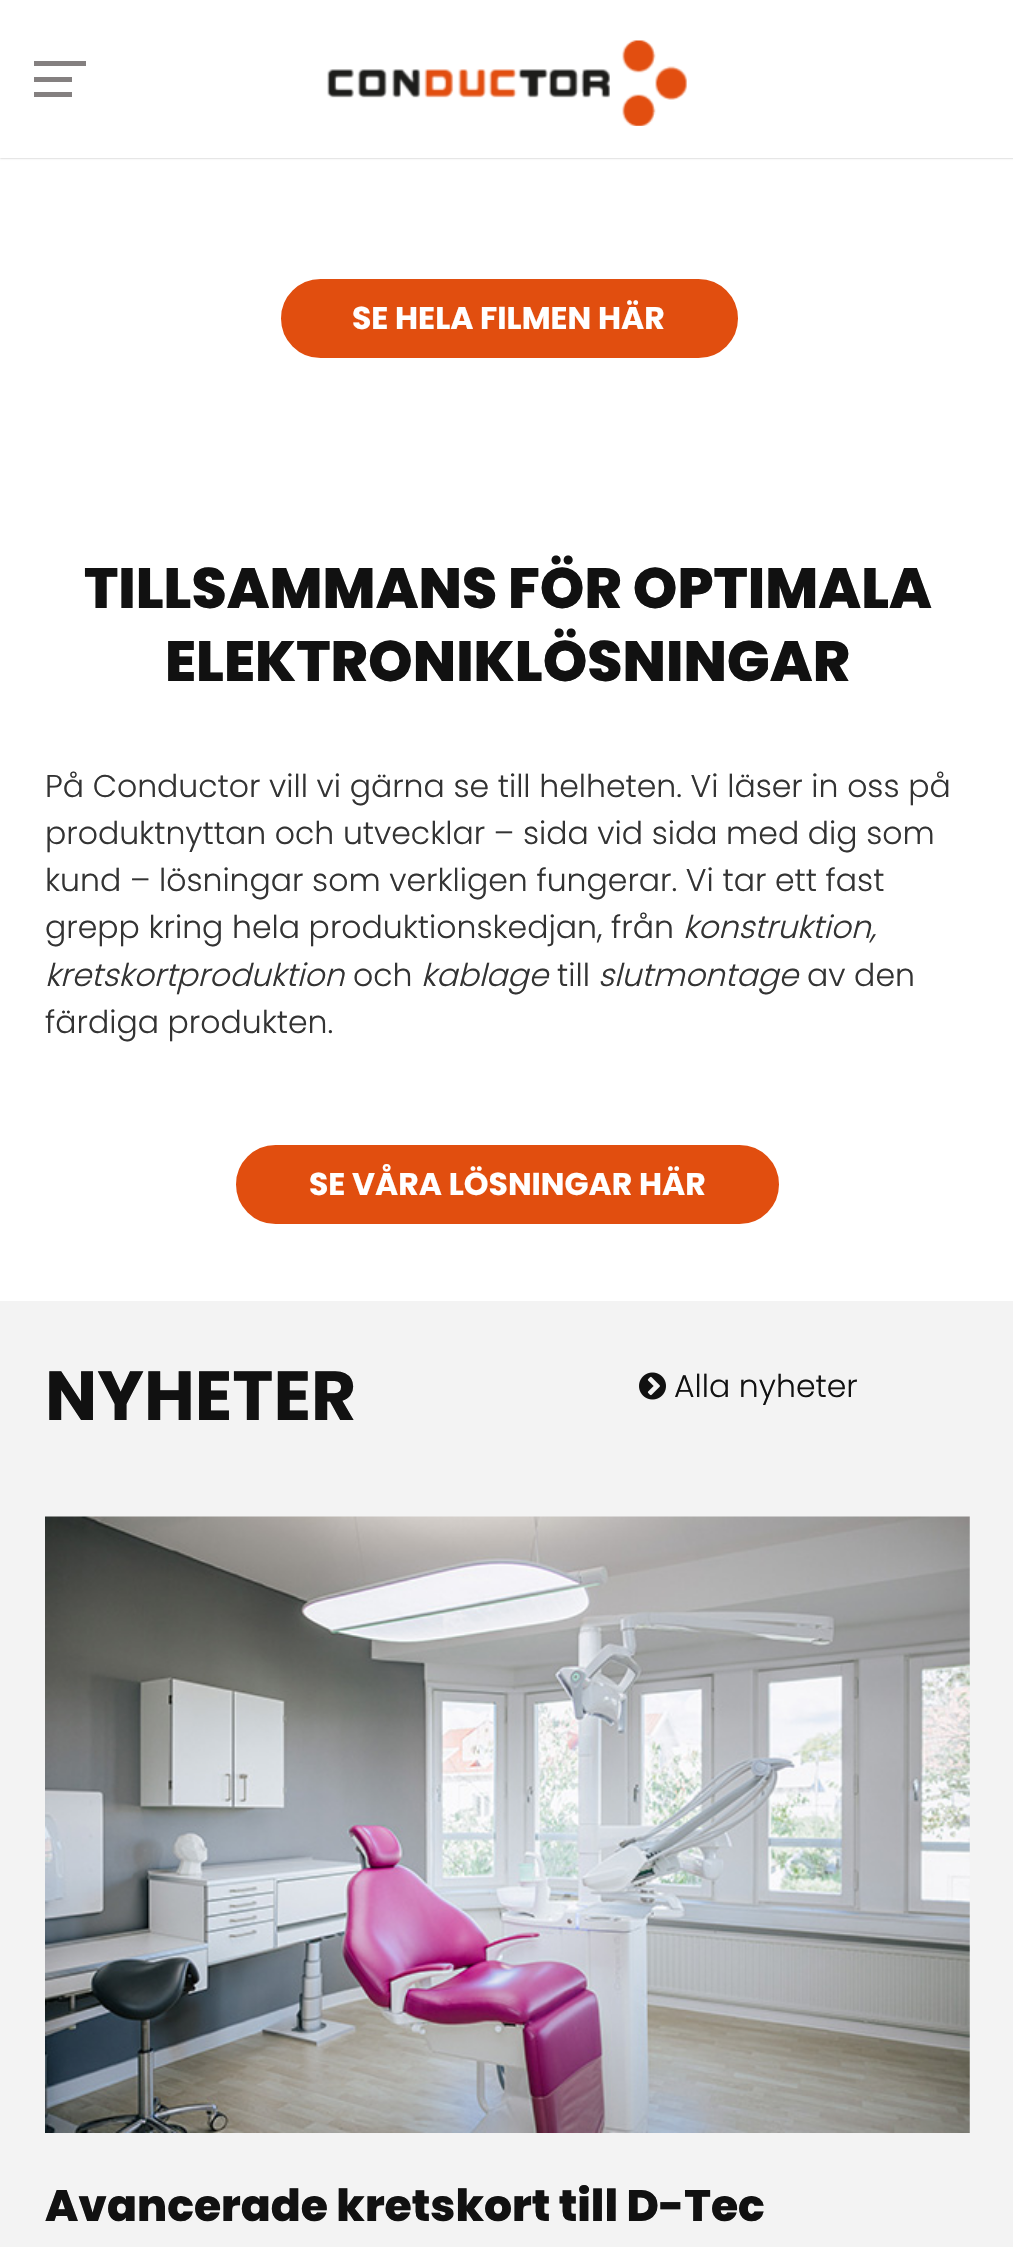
void draw(SkCanvas* canvas) {
	SkPaint fill;
	fill.setAntiAlias(true);
	auto makeFont = [&](const char* family, int weight, float size, bool italic = false) {
		SkFontStyle style(weight, SkFontStyle::kNormal_Width,
			italic ? SkFontStyle::kItalic_Slant : SkFontStyle::kUpright_Slant);
		SkFont result(fontMgr->matchFamilyStyle(family, style), size);
		result.setSubpixel(true);
		return result;
	};
	auto text = [&](const char* s, float x, float y, const SkFont& font) {
		canvas->drawString(s, x, y, font, fill);
	};
	auto box = [&](float l, float t, float r, float b) {
		canvas->drawRect(SkRect::MakeLTRB(l, t, r, b), fill);
	};
	auto picture = [&](const char* path, float l, float t, float r, float b) {
		auto image = SkImages::DeferredFromEncodedData(SkData::MakeFromFileName(path));
		canvas->drawImageRect(image, SkRect::MakeLTRB(l, t, r, b), SkSamplingOptions());
	};
	canvas->clear(0xFFFFFFFF);
	fill.setColor(0x4D000000);
	fill.setMaskFilter(SkMaskFilter::MakeBlur(kNormal_SkBlurStyle, 1));
	canvas->drawRect(SkRect::MakeLTRB(0, 0, 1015, 158), fill);
	fill.setMaskFilter(nullptr);
	fill.setColor(0xFFFFFFFF);
	box(0, 0, 1013, 158);
	fill.setColor(0xFF848080);
	box(34, 77, 72, 82);
	box(34, 61, 86, 66);
	box(34, 92, 72, 97);
	picture("image0.png", 327, 40, 687, 126);
	fill.setColor(0xFFE14E0F);
	canvas->drawRoundRect(SkRect::MakeLTRB(283.5f, 281.5f, 735.5f, 355.5f), 37, 37, fill);
	fill.setStyle(SkPaint::kStroke_Style);
	fill.setStrokeWidth(5);
	canvas->drawRoundRect(SkRect::MakeLTRB(283.5f, 281.5f, 735.5f, 355.5f), 37, 37, fill);
	fill.setStyle(SkPaint::kFill_Style);
	canvas->drawRoundRect(SkRect::MakeLTRB(238.5f, 1147.5f, 776.5f, 1221.5f), 37, 37, fill);
	fill.setStyle(SkPaint::kStroke_Style);
	canvas->drawRoundRect(SkRect::MakeLTRB(238.5f, 1147.5f, 776.5f, 1221.5f), 37, 37, fill);
	fill.setStyle(SkPaint::kFill_Style);
	fill.setColor(0xFFF3F3F3);
	box(0, 1301, 1013, 2247);
	picture("image1.png", 639, 1372, 666, 1400);
	picture("image2.png", 45, 1516, 970, 2133);
	auto font1 = makeFont("Poppins", 700, 31.5f);
	fill.setColor(0xFFFFFFFF);
	text("SE HELA FILMEN HÄR", 352, 329, font1);
	auto font2 = makeFont("Poppins", 800, 56.75f);
	fill.setColor(0xFF111111);
	text("TILLSAMMANS FÖR OPTIMALA", 84, 608, font2);
	text("ELEKTRONIKLÖSNINGAR", 165, 681, font2);
	auto font3 = makeFont("Poppins", 300, 31.5f);
	fill.setColor(0xFF333333);
	text("På Conductor vill vi gärna se till helheten. Vi läser in oss på", 45, 797, font3);
	text("produktnyttan och utvecklar – sida vid sida med dig som", 45, 844, font3);
	text("kund – lösningar som verkligen fungerar. Vi tar ett fast", 45, 891, font3);
	text("grepp kring hela produktionskedjan, från", 45, 938, font3);
	auto font4 = makeFont("Poppins", 300, 31.5f, true);
	text("konstruktion,", 683, 938, font4);
	text("kretskortproduktion", 45, 986, font4);
	text("och", 353, 986, font3);
	text("kablage", 421, 986, font4);
	text("till", 557, 986, font3);
	text("slutmontage", 598, 986, font4);
	text("av den", 807, 986, font3);
	text("färdiga produkten.", 45, 1033, font3);
	fill.setColor(0xFFFFFFFF);
	text("SE VÅRA LÖSNINGAR HÄR", 309, 1195, font1);
	auto font5 = makeFont("Poppins", 700, 69.5f);
	fill.setColor(0xFF111111);
	text("NYHETER", 45, 1420, font5);
	text("Alla nyheter", 674, 1397, font3);
	auto font6 = makeFont("Poppins", 800, 44.1f);
	text("Avancerade kretskort till D-Tec", 45, 2221, font6);
}
